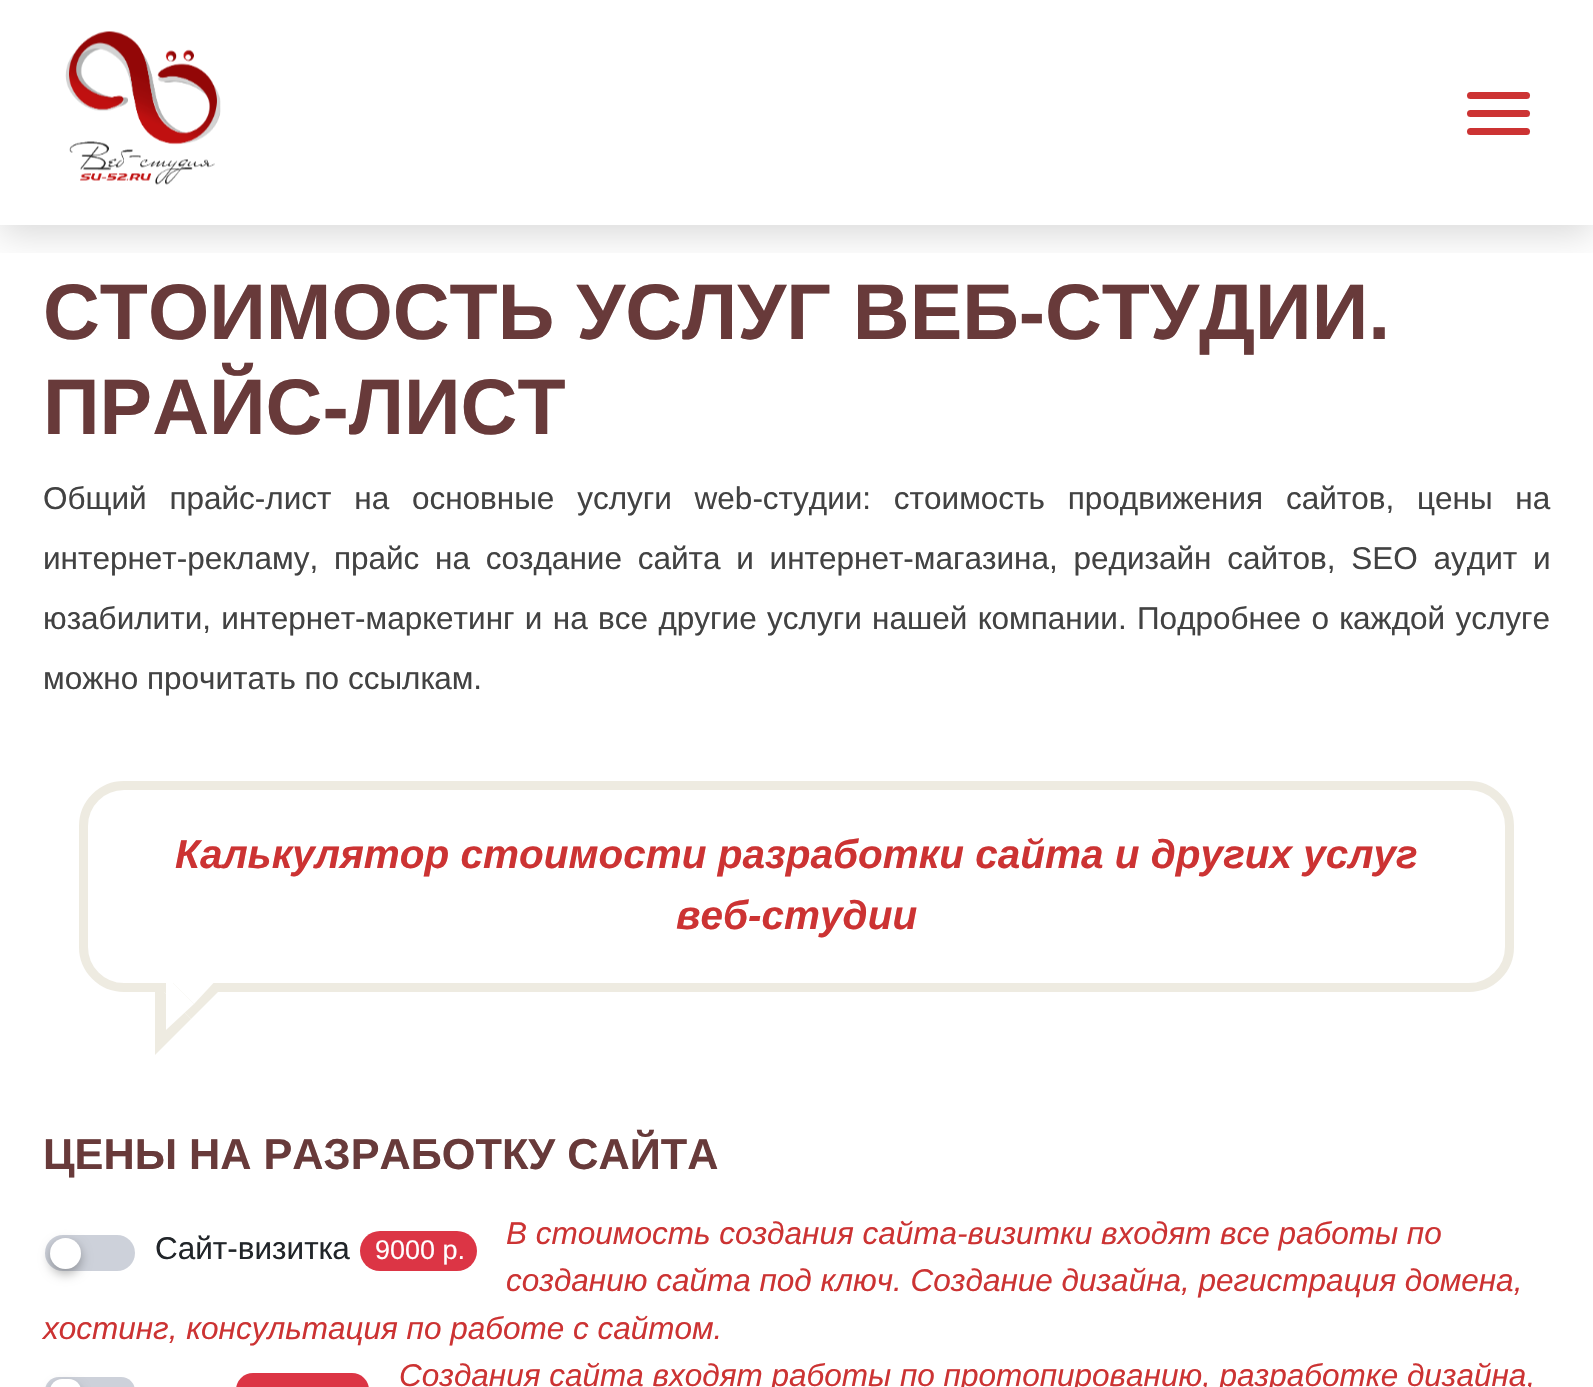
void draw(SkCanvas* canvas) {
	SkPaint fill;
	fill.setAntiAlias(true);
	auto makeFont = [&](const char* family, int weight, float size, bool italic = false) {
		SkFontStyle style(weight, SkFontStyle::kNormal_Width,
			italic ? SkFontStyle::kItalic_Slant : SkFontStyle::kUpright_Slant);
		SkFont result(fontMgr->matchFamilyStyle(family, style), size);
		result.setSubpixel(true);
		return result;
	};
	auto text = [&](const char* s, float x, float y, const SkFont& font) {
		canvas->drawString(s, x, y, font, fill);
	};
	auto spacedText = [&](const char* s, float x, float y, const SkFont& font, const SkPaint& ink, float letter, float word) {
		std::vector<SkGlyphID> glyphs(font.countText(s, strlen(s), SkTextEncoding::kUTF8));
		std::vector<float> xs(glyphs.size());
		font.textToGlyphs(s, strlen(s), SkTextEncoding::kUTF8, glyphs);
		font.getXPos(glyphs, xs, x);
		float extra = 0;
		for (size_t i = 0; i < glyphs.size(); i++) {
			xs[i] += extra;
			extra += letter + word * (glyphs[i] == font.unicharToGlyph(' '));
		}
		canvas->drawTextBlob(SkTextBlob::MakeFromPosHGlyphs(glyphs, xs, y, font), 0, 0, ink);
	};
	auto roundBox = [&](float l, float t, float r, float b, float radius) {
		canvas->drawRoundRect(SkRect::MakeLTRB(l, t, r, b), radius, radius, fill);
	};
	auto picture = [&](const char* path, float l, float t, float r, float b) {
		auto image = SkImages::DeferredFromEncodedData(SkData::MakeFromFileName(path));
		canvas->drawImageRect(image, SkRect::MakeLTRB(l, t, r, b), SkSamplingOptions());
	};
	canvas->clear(0xFFFFFFFF);
	canvas->save();
	canvas->clipRect(SkRect::MakeLTRB(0, 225, 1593, 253));
	fill.setColor(0x26000000);
	fill.setMaskFilter(SkMaskFilter::MakeBlur(kNormal_SkBlurStyle, 17));
	canvas->drawRect(SkRect::MakeLTRB(0, 9, 1593, 234), fill);
	fill.setMaskFilter(nullptr);
	canvas->restore();
	picture("image0.png", 65, 31, 221, 185);
	fill.setColor(0xFFCC3333);
	roundBox(1467, 92, 1530, 99, 3.5f);
	roundBox(1467, 110, 1530, 117, 3.5f);
	roundBox(1467, 128, 1530, 135, 3.5f);
	fill.setStyle(SkPaint::kStroke_Style);
	fill.setStrokeWidth(9);
	fill.setColor(0xFFEEEBE1);
	canvas->drawRoundRect(SkRect::MakeLTRB(83.5f, 785.5f, 1509.5f, 987.5f), 40.5f, 40.5f, fill);
	fill.setStyle(SkPaint::kFill_Style);
	canvas->drawPath(SkPathBuilder().moveTo(155, 983).lineTo(227, 983).lineTo(191, 1019).close().detach(), fill);
	canvas->drawPath(SkPathBuilder().moveTo(155, 1055).lineTo(155, 983).lineTo(191, 1019).close().detach(), fill);
	fill.setColor(0xFFFFFFFF);
	canvas->drawPath(SkPathBuilder().moveTo(166, 976).lineTo(220, 976).lineTo(194, 1004).close().detach(), fill);
	canvas->drawPath(SkPathBuilder().moveTo(166, 1030).lineTo(166, 976).lineTo(194, 1004).close().detach(), fill);
	fill.setColor(0xFFCDD1DA);
	roundBox(45, 1235, 135, 1271, 18);
	fill.setColor(0x4D000000);
	fill.setMaskFilter(SkMaskFilter::MakeBlur(kNormal_SkBlurStyle, 5.5f));
	canvas->drawRoundRect(SkRect::MakeLTRB(50, 1242, 81, 1274), 15.5f, 15.5f, fill);
	fill.setMaskFilter(nullptr);
	fill.setColor(0xFFFFFFFF);
	canvas->drawCircle(65.5f, 1253.5f, 15.5f, fill);
	fill.setColor(0xFFDC3545);
	roundBox(360, 1231, 477, 1271, 20);
	fill.setColor(0xFFCDD1DA);
	roundBox(45, 1377, 135, 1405, 18);
	fill.setColor(0x4D000000);
	fill.setMaskFilter(SkMaskFilter::MakeBlur(kNormal_SkBlurStyle, 5.5f));
	canvas->drawRoundRect(SkRect::MakeLTRB(50, 1384, 81, 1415), 15.5f, 15.5f, fill);
	fill.setMaskFilter(nullptr);
	fill.setColor(0xFFFFFFFF);
	roundBox(50, 1379, 81, 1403, 15.5f);
	fill.setColor(0xFFDC3545);
	roundBox(236, 1373, 369, 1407, 20);
	auto font1 = makeFont("Liberation Sans", 700, 78.75f);
	fill.setColor(0xFF683A3A);
	text("СТОИМОСТЬ УСЛУГ ВЕБ-СТУДИИ.", 43, 339, font1);
	text("ПРАЙС-ЛИСТ", 43, 434, font1);
	auto font2 = makeFont("Liberation Sans", 400, 31.5f);
	fill.setColor(0xFF424242);
	spacedText("Общий прайс-лист на основные услуги web-студии: стоимость продвижения сайтов, цены на", 43, 509, font2, fill, 0, 14);
	spacedText("интернет-рекламу, прайс на создание сайта и интернет-магазина, редизайн сайтов, SEO аудит и", 43, 569, font2, fill, 0, 7);
	spacedText("юзабилити, интернет-маркетинг и на все другие услуги нашей компании. Подробнее о каждой услуге", 43, 629, font2, fill, 0, 1.6f);
	text("можно прочитать по ссылкам.", 43, 689, font2);
	auto font3 = makeFont("Liberation Sans", 700, 40.5f, true);
	fill.setColor(0xFFCC3333);
	text("Калькулятор стоимости разработки сайта и других услуг", 175, 868, font3);
	text("веб-студии", 676, 929, font3);
	auto font4 = makeFont("Liberation Sans", 700, 43.25f);
	fill.setColor(0xFF683A3A);
	text("ЦЕНЫ НА РАЗРАБОТКУ САЙТА", 43, 1169, font4);
	fill.setColor(0xFF212529);
	text("Сайт-визитка", 155, 1259, font2);
	auto font5 = makeFont("Liberation Sans", 400, 27);
	fill.setColor(0xFFFFFFFF);
	text("9000 р.", 375, 1259, font5);
	auto font6 = makeFont("Liberation Sans", 400, 31.5f, true);
	fill.setColor(0xFFCC3333);
	text("В стоимость создания сайта-визитки входят все работы по", 506, 1244, font6);
	text("созданию сайта под ключ. Создание дизайна, регистрация домена,", 506, 1291, font6);
	text("хостинг, консультация по работе с сайтом.", 43, 1339, font6);
	text("Создания сайта входят работы по протопированию, разработке дизайна,", 399, 1386, font6);
}
